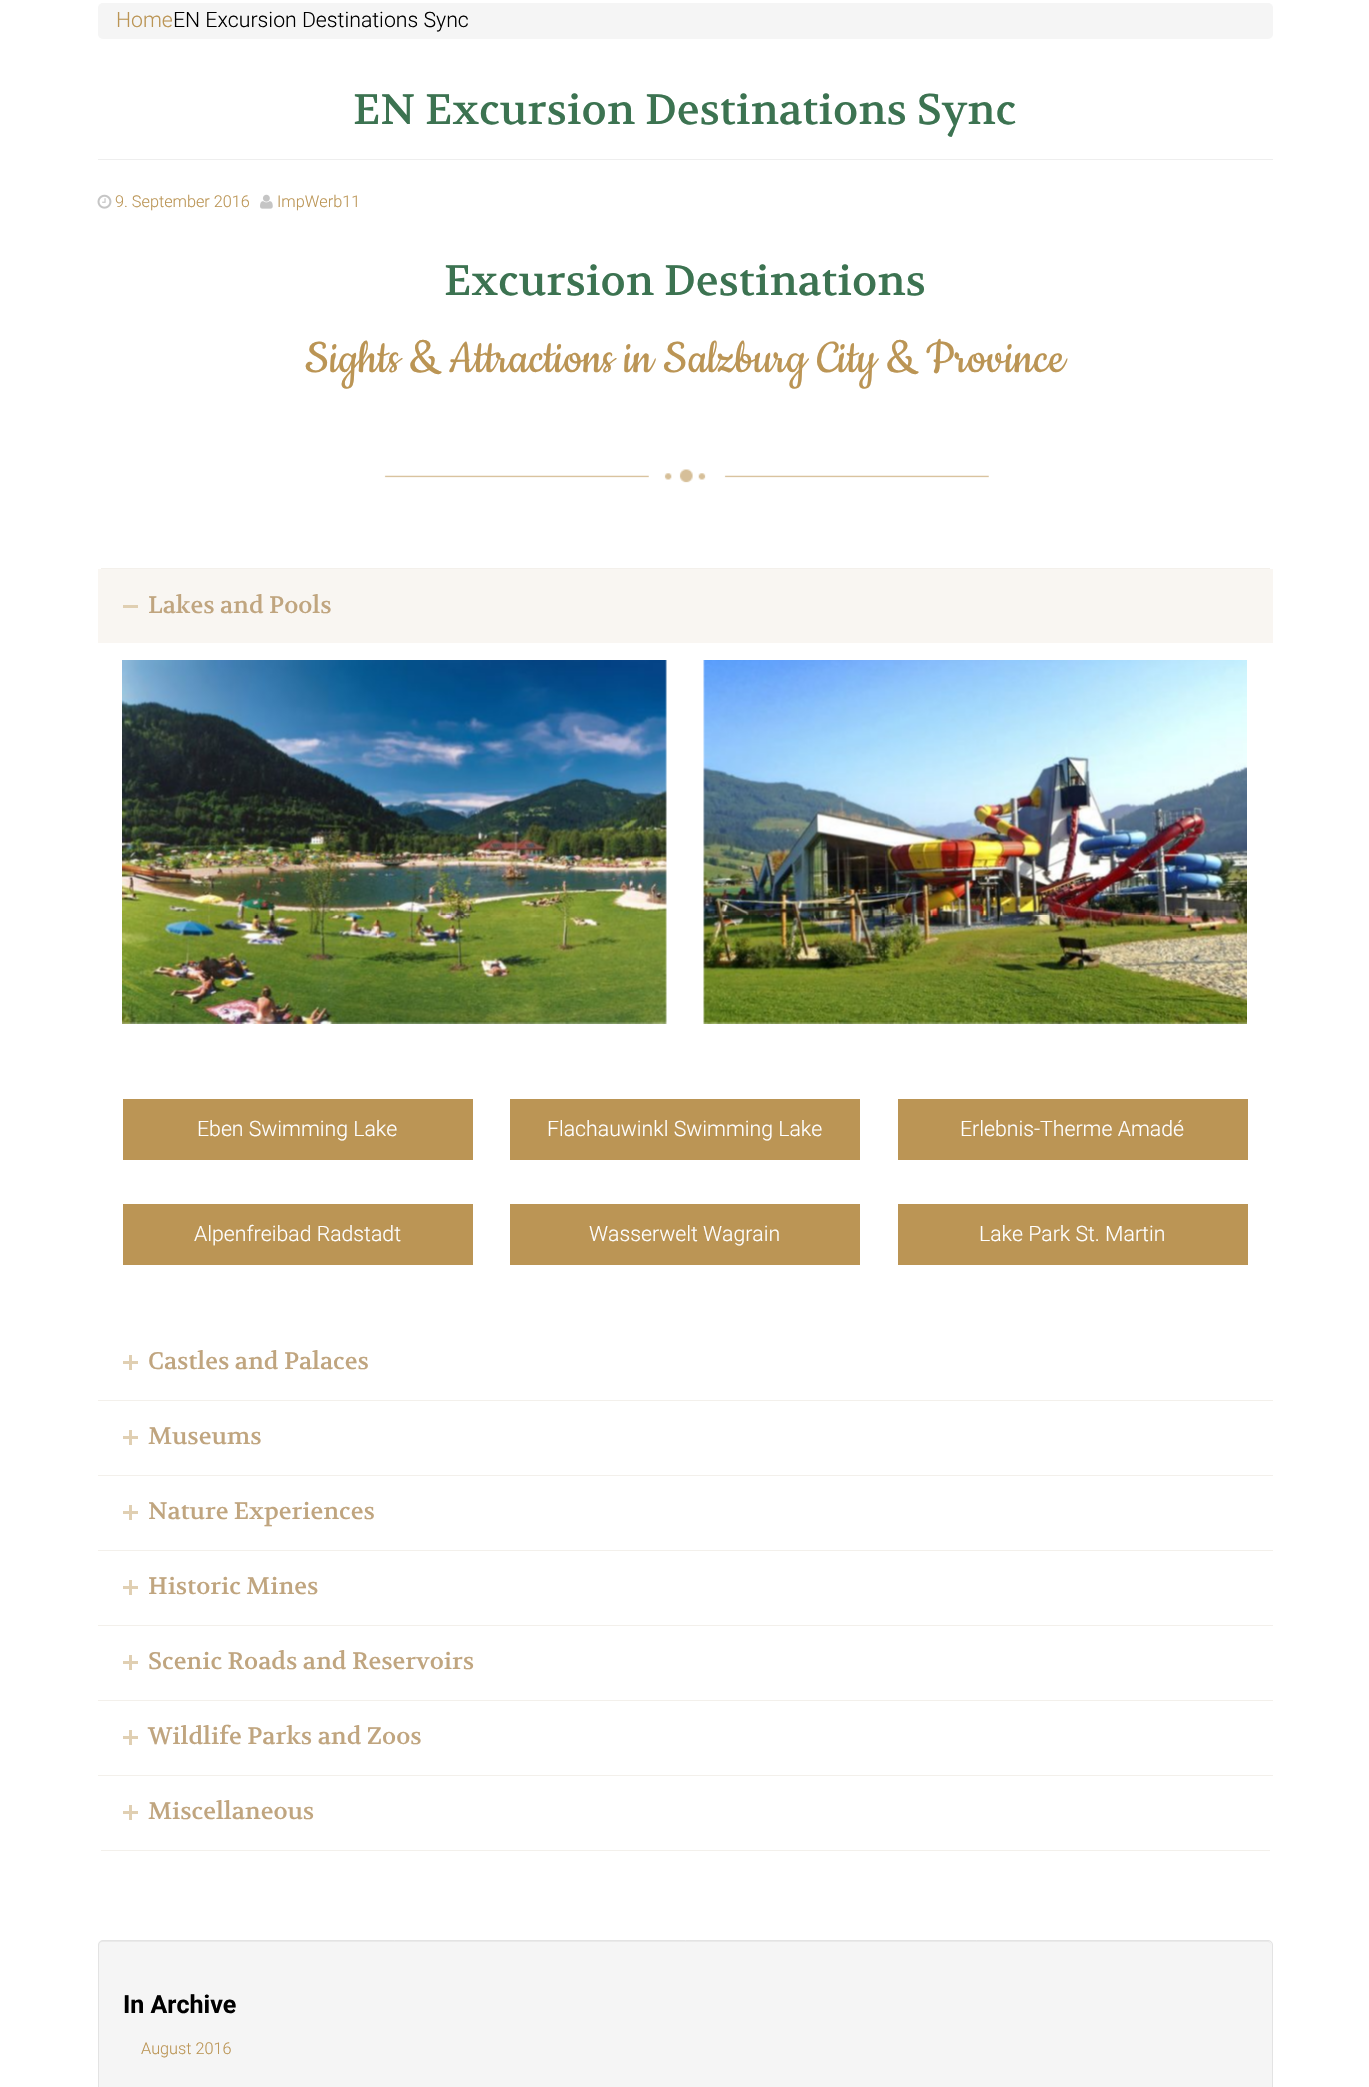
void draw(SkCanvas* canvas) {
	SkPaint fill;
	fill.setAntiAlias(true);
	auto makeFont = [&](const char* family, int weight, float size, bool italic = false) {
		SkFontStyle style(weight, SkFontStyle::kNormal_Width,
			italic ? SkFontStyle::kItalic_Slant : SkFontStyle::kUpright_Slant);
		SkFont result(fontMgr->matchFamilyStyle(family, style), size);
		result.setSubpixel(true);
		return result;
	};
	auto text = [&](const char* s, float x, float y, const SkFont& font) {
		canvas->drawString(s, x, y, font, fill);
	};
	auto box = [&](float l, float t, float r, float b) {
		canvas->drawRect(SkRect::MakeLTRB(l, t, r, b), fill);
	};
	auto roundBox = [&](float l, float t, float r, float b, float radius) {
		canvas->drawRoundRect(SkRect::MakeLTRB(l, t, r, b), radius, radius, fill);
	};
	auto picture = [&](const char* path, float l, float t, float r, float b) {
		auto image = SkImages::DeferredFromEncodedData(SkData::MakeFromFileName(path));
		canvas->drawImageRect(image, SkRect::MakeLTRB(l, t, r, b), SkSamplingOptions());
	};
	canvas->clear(0xFFFFFFFF);
	fill.setColor(0xFFF5F5F5);
	roundBox(98, 3, 1273, 39, 5);
	fill.setColor(0xFFEEEEEE);
	box(98, 159, 1273, 160);
	picture("image0.png", 97, 194, 112, 209);
	picture("image1.png", 260, 194, 273, 209);
	picture("image2.png", 384, 469, 989, 483);
	fill.setColor(0xFFF3F0EB);
	box(101, 568, 1270, 569);
	fill.setColor(0xFFF9F6F2);
	box(98, 569, 1273, 643);
	fill.setColor(0xFFE0CFB2);
	box(123, 605, 138, 608);
	picture("image3.png", 122, 660, 667, 1024);
	picture("image4.png", 703, 660, 1247, 1024);
	fill.setColor(0xFFBB9555);
	box(123, 1099, 473, 1160);
	box(123, 1204, 473, 1265);
	box(510, 1099, 860, 1160);
	box(510, 1204, 860, 1265);
	box(898, 1099, 1248, 1160);
	box(898, 1204, 1248, 1265);
	fill.setColor(0xFFE0CFB2);
	box(123, 1361, 138, 1364);
	box(129, 1355, 132, 1370);
	fill.setColor(0xFFF3F0EB);
	box(98, 1400, 1273, 1401);
	fill.setColor(0xFFE0CFB2);
	box(123, 1436, 138, 1439);
	box(129, 1430, 132, 1445);
	fill.setColor(0xFFF3F0EB);
	box(98, 1475, 1273, 1476);
	fill.setColor(0xFFE0CFB2);
	box(123, 1511, 138, 1514);
	box(129, 1505, 132, 1520);
	fill.setColor(0xFFF3F0EB);
	box(98, 1550, 1273, 1551);
	fill.setColor(0xFFE0CFB2);
	box(123, 1586, 138, 1589);
	box(129, 1580, 132, 1595);
	fill.setColor(0xFFF3F0EB);
	box(98, 1625, 1273, 1626);
	fill.setColor(0xFFE0CFB2);
	box(123, 1661, 138, 1664);
	box(129, 1655, 132, 1670);
	fill.setColor(0xFFF3F0EB);
	box(98, 1700, 1273, 1701);
	fill.setColor(0xFFE0CFB2);
	box(123, 1736, 138, 1739);
	box(129, 1730, 132, 1745);
	fill.setColor(0xFFF3F0EB);
	box(98, 1775, 1273, 1776);
	box(101, 1850, 1270, 1851);
	fill.setColor(0xFFE0CFB2);
	box(123, 1811, 138, 1814);
	box(129, 1805, 132, 1820);
	fill.setColor(0xFFF5F5F5);
	roundBox(98, 1940, 1273, 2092, 5);
	fill.setColor(0xFFE9E9E9);
	canvas->drawPath(SkPathBuilder().moveTo(102, 1942).lineTo(1268, 1942).cubicTo(1270, 1942, 1271, 1944, 1271, 1946).cubicTo(1271, 1943, 1270, 1941, 1267, 1941).lineTo(103, 1941).cubicTo(100, 1941, 99, 1943, 99, 1946).cubicTo(99, 1944, 100, 1942, 102, 1942).close().detach(), fill);
	fill.setStyle(SkPaint::kStroke_Style);
	fill.setStrokeWidth(1);
	fill.setColor(0xFFE3E3E3);
	canvas->drawRoundRect(SkRect::MakeLTRB(98.5f, 1940.5f, 1272.5f, 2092.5f), 4.5f, 4.5f, fill);
	auto font1 = makeFont("Roboto", 300, 21.25f);
	fill.setStyle(SkPaint::kFill_Style);
	fill.setColor(0xFFBB9555);
	text("Home", 116, 27, font1);
	fill.setColor(0xFF000000);
	text("EN Excursion Destinations Sync", 173, 27, font1);
	auto font2 = makeFont("Volkhov", 400, 42.5f);
	fill.setColor(0xFF3C7351);
	text("EN Excursion Destinations Sync", 353, 124, font2);
	auto font3 = makeFont("Roboto", 300, 16.25f);
	fill.setColor(0xFFBB9555);
	text("9. September 2016", 115, 207, font3);
	text("ImpWerb11", 277, 207, font3);
	fill.setColor(0xFF3C7351);
	text("Excursion Destinations", 444, 295, font2);
	auto font4 = makeFont("Cookie", 400, 52.5f);
	fill.setColor(0xFFBB9555);
	text("Sights & Attractions in Salzburg City & Province", 305, 372, font4);
	auto font5 = makeFont("Volkhov", 400, 23.75f);
	fill.setColor(0xFFC0A57F);
	text("Lakes and Pools", 148, 613, font5);
	fill.setColor(0xFFFFFFFF);
	text("Eben Swimming Lake", 197, 1136, font1);
	text("Alpenfreibad Radstadt", 194, 1241, font1);
	text("Flachauwinkl Swimming Lake", 547, 1136, font1);
	text("Wasserwelt Wagrain", 589, 1241, font1);
	text("Erlebnis-Therme Amadé", 960, 1136, font1);
	text("Lake Park St. Martin", 979, 1241, font1);
	fill.setColor(0xFFC0A57F);
	text("Castles and Palaces", 148, 1369, font5);
	text("Museums", 148, 1444, font5);
	text("Nature Experiences", 148, 1519, font5);
	text("Historic Mines", 148, 1594, font5);
	text("Scenic Roads and Reservoirs", 148, 1669, font5);
	text("Wildlife Parks and Zoos", 148, 1744, font5);
	text("Miscellaneous", 148, 1819, font5);
	auto font6 = makeFont("Roboto", 700, 25);
	fill.setColor(0xFF000000);
	text("In Archive", 123, 2013, font6);
	fill.setColor(0xFFBB9555);
	text("August 2016", 141, 2054, font3);
}
